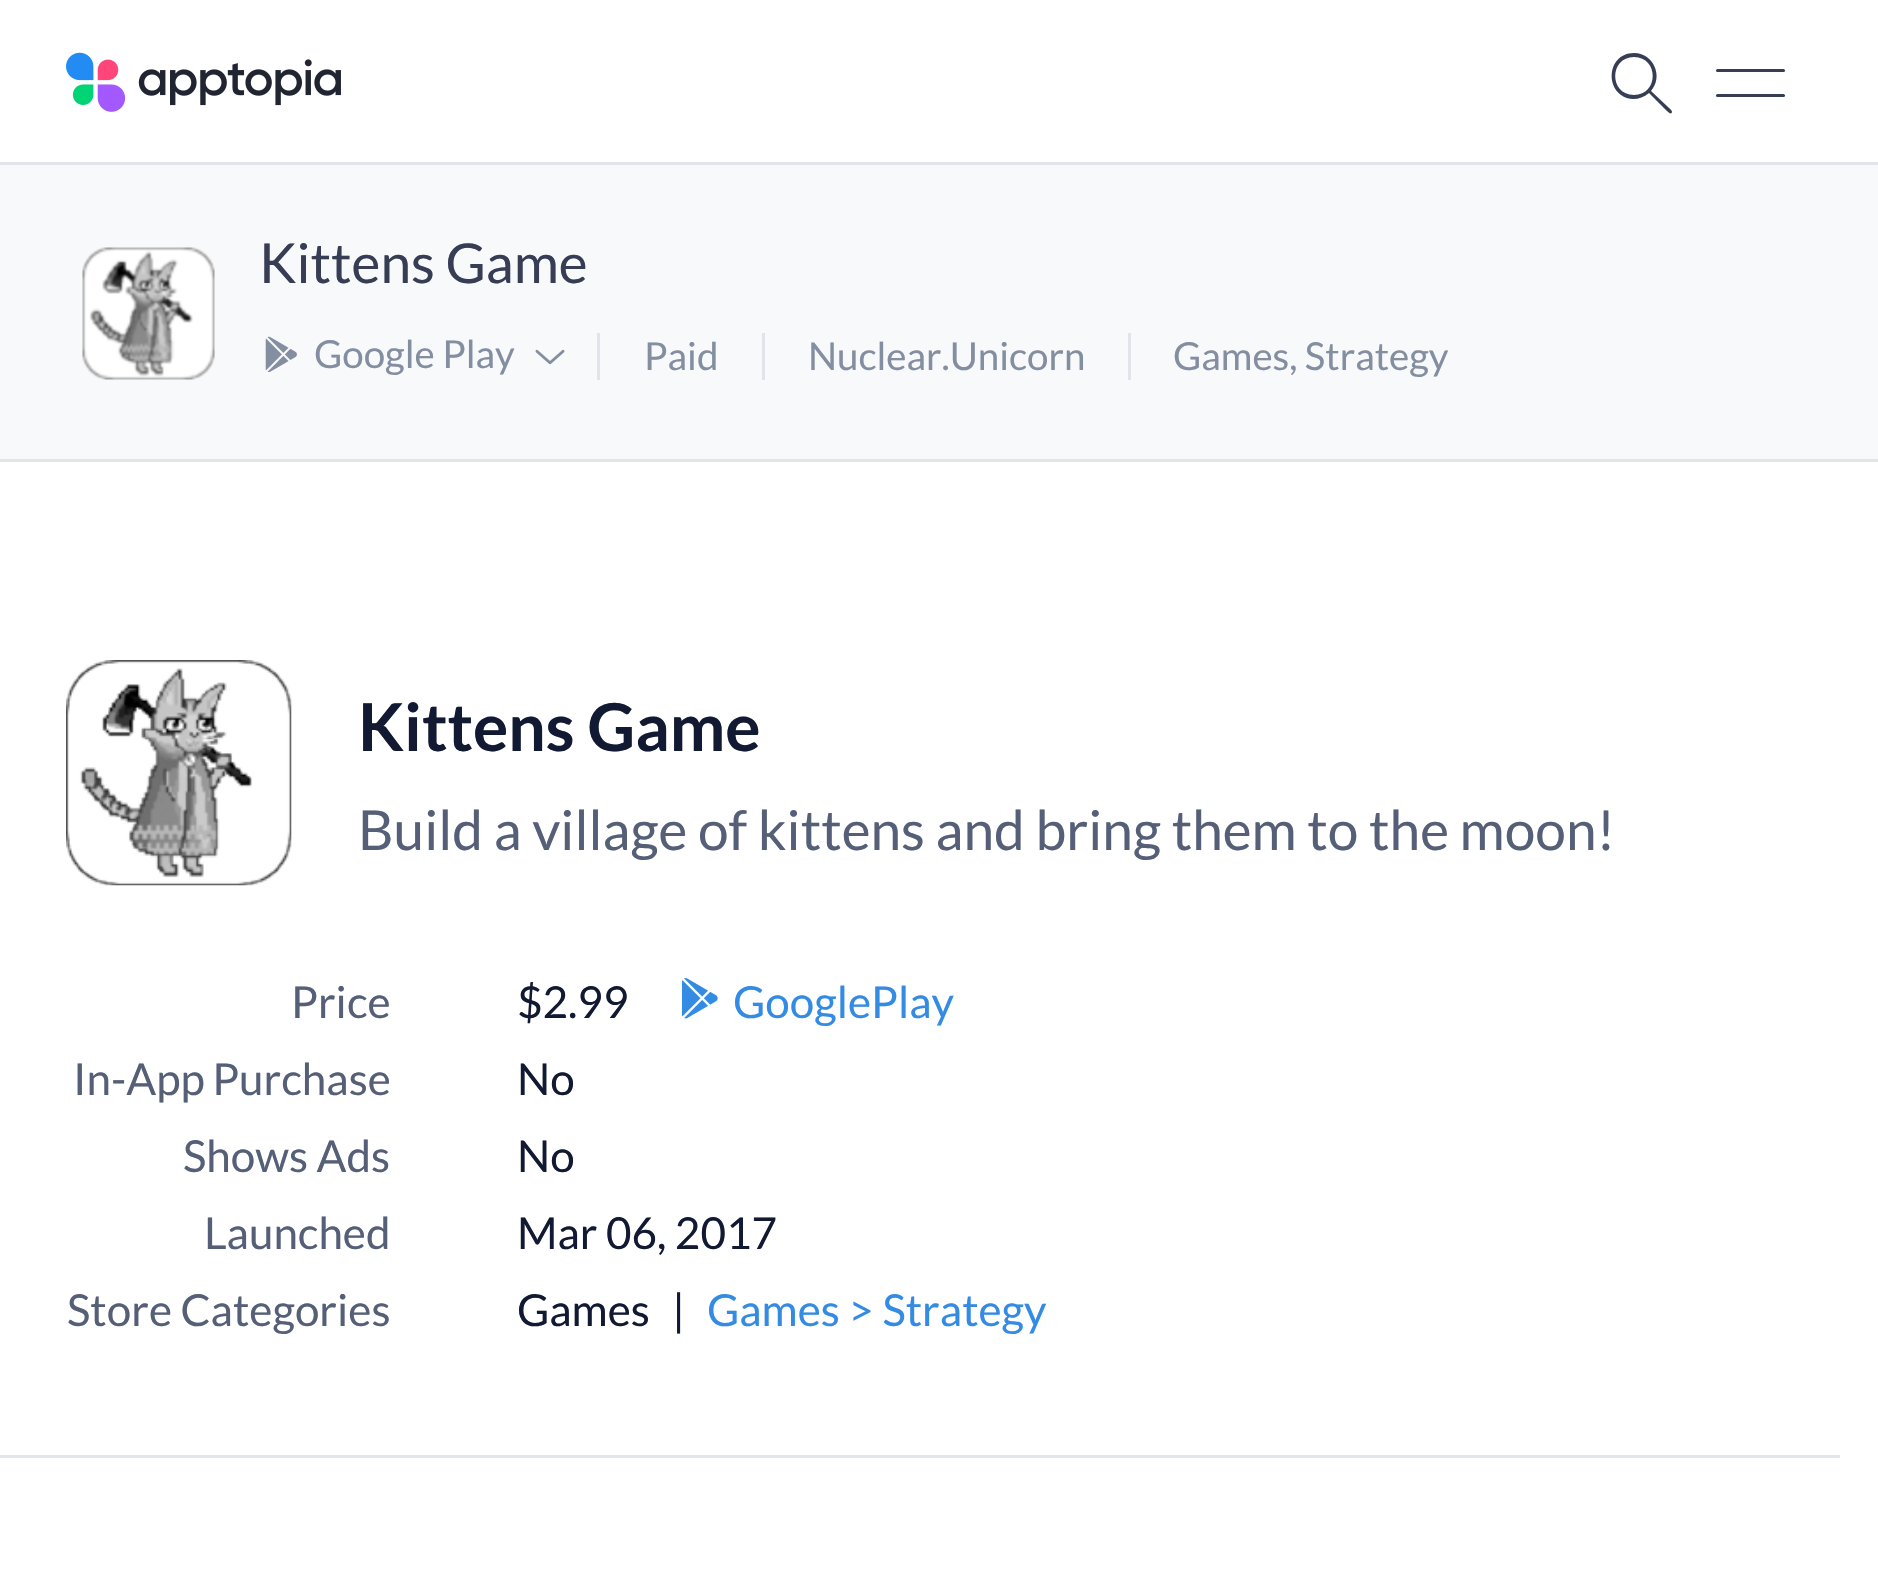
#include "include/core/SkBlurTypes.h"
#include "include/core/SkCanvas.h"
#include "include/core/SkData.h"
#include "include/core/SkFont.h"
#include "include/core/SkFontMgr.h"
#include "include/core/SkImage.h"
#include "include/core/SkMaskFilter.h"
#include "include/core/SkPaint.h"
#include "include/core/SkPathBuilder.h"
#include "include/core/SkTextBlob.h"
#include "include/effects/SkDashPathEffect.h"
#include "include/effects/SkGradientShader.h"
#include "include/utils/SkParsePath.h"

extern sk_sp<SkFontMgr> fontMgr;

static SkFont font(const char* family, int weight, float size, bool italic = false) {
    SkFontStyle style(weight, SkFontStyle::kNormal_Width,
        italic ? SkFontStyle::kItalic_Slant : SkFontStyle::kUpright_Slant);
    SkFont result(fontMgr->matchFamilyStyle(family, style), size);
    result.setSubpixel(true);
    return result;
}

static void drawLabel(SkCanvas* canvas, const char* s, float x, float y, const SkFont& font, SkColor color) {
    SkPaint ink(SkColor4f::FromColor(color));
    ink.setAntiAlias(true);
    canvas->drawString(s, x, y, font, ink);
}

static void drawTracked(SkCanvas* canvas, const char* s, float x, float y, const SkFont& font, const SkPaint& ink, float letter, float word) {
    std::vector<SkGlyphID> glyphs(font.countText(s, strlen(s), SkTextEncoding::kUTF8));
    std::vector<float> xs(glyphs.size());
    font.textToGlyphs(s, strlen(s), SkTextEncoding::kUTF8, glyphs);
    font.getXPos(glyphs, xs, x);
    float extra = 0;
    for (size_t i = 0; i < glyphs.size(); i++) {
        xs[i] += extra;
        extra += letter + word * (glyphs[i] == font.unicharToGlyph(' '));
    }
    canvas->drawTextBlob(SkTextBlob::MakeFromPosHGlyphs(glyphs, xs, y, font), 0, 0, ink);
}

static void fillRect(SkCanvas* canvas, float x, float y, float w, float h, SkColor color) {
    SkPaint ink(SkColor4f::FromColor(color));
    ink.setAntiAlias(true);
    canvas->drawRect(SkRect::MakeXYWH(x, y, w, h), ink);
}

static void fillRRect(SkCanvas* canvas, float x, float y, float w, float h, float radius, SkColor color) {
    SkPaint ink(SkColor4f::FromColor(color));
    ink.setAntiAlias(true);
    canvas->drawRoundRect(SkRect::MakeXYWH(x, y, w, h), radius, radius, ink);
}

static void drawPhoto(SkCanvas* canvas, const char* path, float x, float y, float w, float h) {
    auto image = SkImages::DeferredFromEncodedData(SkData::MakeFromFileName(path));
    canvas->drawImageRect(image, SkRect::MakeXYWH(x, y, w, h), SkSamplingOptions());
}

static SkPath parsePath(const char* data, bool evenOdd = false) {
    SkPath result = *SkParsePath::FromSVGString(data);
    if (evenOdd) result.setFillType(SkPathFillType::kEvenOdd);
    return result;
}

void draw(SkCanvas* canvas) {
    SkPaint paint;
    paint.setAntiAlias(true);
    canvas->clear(0xFFFFFFFF);
    fillRect(canvas, 0, 162, 1878, 3, 0xFFE1E5EB);
    drawPhoto(canvas, "assets/img1.png", 66, 52, 275, 60);
    paint.setColor(0xFF363D54);
    canvas->drawPath(parsePath("M1634 53C1653 53 1664 76 1651 91L1668 107C1669 108 1672 110 1672 112C1671 116 1667 111 1662 106L1649 93C1644 97 1639 99 1633 99C1604 97 1605 53 1634 53ZM1634 57C1609 57 1609 95 1634 95C1659 95 1659 57 1634 57Z"), paint);
    fillRRect(canvas, 1716, 69, 69, 3, 1.5f, 0xFF363D54);
    fillRRect(canvas, 1716, 94, 69, 3, 1.5f, 0xFF363D54);
    fillRect(canvas, 0, 165, 1878, 294, 0xFFF8F9FB);
    fillRect(canvas, 0, 459, 1878, 3, 0xFFE1E5EB);
    drawPhoto(canvas, "assets/img2.png", 82, 247, 133, 133);
    SkFont font1 = font("Lato", 400, 55);
    drawLabel(canvas, "Kittens Game", 259, 283, font1, 0xFF363D54);
    drawPhoto(canvas, "assets/img3.png", 265, 336, 32, 37);
    SkFont font2 = font("Lato", 400, 38.5f);
    drawLabel(canvas, "Google Play", 314, 368, font2, 0xFF848EA1);
    drawPhoto(canvas, "assets/img4.png", 535, 349, 30, 16);
    fillRect(canvas, 597, 333, 3, 47, 0xFFE1E5EB);
    drawLabel(canvas, "Paid", 644, 370, font2, 0xFF848EA1);
    fillRect(canvas, 762, 333, 3, 47, 0xFFE1E5EB);
    drawLabel(canvas, "Nuclear.Unicorn", 808, 370, font2, 0xFF848EA1);
    fillRect(canvas, 1128, 333, 3, 47, 0xFFE1E5EB);
    drawLabel(canvas, "Games, Strategy", 1173, 370, font2, 0xFF848EA1);
    drawPhoto(canvas, "assets/img5.png", 66, 660, 226, 226);
    SkFont font3 = font("Lato", 700, 66);
    drawLabel(canvas, "Kittens Game", 358, 751, font3, 0xFF121A33);
    drawLabel(canvas, "Build a village of kittens and bring them to the moon!", 358, 850, font1, 0xFF555F77);
    SkFont font4 = font("Lato", 400, 44);
    drawLabel(canvas, "Price", 291, 1018, font4, 0xFF555F77);
    drawLabel(canvas, "$2.99", 517, 1018, font4, 0xFF121A33);
    drawPhoto(canvas, "assets/img6.png", 682, 978, 36, 41);
    drawLabel(canvas, "GooglePlay", 733, 1018, font4, 0xFF348BE3);
    paint.setColor(0xFF555F77);
    drawTracked(canvas, "In-App Purchase", 73, 1095, font4, paint, 0, -1);
    drawLabel(canvas, "No", 517, 1095, font4, 0xFF121A33);
    drawLabel(canvas, "Shows Ads", 183, 1172, font4, 0xFF555F77);
    drawLabel(canvas, "No", 517, 1172, font4, 0xFF121A33);
    drawLabel(canvas, "Launched", 204, 1249, font4, 0xFF555F77);
    drawLabel(canvas, "Mar 06, 2017", 517, 1249, font4, 0xFF121A33);
    drawLabel(canvas, "Store Categories", 67, 1326, font4, 0xFF555F77);
    drawLabel(canvas, "Games", 517, 1326, font4, 0xFF121A33);
    drawLabel(canvas, "|", 672, 1326, font4, 0xFF121A33);
    drawLabel(canvas, "Games > Strategy", 707, 1326, font4, 0xFF348BE3);
    fillRect(canvas, 0, 1455, 1840, 3, 0xFFE1E5EB);
}
